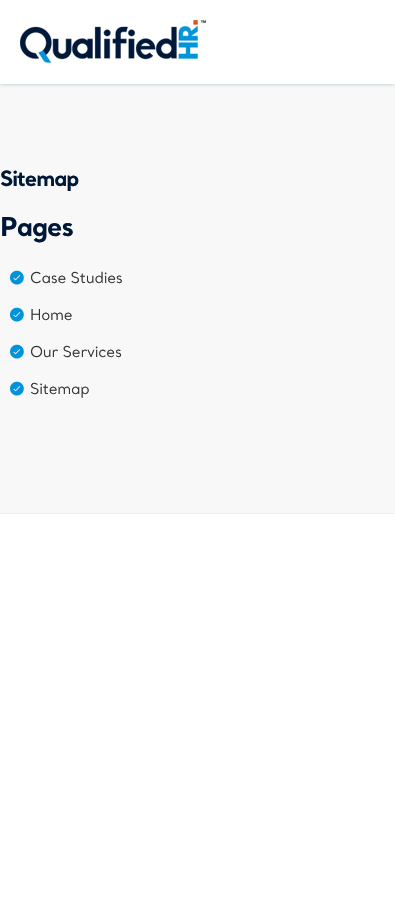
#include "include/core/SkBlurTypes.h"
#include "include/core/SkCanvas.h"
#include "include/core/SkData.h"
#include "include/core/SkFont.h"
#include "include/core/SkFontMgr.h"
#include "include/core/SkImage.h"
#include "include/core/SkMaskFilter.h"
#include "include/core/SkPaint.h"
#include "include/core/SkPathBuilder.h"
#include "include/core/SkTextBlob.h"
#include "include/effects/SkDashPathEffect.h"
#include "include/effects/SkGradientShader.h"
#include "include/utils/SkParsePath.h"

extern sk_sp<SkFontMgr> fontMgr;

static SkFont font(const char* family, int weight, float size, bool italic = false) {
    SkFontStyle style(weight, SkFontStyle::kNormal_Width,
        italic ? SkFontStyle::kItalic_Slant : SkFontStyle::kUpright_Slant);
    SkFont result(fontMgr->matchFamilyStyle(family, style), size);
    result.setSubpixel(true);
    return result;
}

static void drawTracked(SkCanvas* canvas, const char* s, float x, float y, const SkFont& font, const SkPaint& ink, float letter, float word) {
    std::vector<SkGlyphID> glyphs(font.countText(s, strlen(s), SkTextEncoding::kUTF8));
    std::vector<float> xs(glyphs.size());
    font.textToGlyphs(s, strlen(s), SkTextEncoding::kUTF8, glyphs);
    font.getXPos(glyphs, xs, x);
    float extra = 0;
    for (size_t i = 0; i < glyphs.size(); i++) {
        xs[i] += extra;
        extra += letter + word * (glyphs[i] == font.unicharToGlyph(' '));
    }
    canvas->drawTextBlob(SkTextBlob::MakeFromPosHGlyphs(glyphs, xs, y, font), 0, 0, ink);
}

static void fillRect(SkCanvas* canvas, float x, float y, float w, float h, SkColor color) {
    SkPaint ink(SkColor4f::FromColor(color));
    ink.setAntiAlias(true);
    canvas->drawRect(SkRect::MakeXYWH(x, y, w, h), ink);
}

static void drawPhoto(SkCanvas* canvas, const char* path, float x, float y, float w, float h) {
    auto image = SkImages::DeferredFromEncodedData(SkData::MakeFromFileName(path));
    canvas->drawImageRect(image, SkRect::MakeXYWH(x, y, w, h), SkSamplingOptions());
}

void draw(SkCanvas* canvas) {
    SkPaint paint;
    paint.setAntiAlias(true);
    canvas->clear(0xFFFFFFFF);
    fillRect(canvas, 0, 84, 395, 429, 0xFFF8F8F8);
    canvas->save();
    canvas->clipRect(SkRect::MakeXYWH(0, 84, 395, 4));
    paint.setColor(0xFFAEC6CA);
    paint.setMaskFilter(SkMaskFilter::MakeBlur(kNormal_SkBlurStyle, 2));
    canvas->drawRect(SkRect::MakeXYWH(0, 60, 395, 24), paint);
    paint.setMaskFilter(nullptr);
    canvas->restore();
    fillRect(canvas, 0, 56, 395, 4, 0xFFFFFFFF);
    drawPhoto(canvas, "assets/img1.png", 20, 20, 186, 43);
    SkFont font1 = font("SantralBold", 700, 21);
    paint.setColor(0xFF001838);
    drawTracked(canvas, "Sitemap", 0, 186, font1, paint, -1, 0);
    SkFont font2 = font("SantralBold", 700, 26);
    drawTracked(canvas, "Pages", 0, 236, font2, paint, -1, 0);
    drawPhoto(canvas, "assets/img2.png", 10, 270, 14, 15);
    SkFont font3 = font("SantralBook", 400, 15);
    paint.setColor(0xFF333333);
    drawTracked(canvas, "Case Studies", 30, 283, font3, paint, -0.25f, 0);
    drawPhoto(canvas, "assets/img2.png", 10, 307, 14, 15);
    drawTracked(canvas, "Home", 30, 320, font3, paint, -0.25f, 0);
    drawPhoto(canvas, "assets/img2.png", 10, 344, 14, 15);
    drawTracked(canvas, "Our Services", 30, 357, font3, paint, -0.25f, 0);
    drawPhoto(canvas, "assets/img2.png", 10, 381, 14, 15);
    drawTracked(canvas, "Sitemap", 30, 394, font3, paint, -0.25f, 0);
    fillRect(canvas, 0, 513, 395, 1, 0xFFEEEEEE);
}
